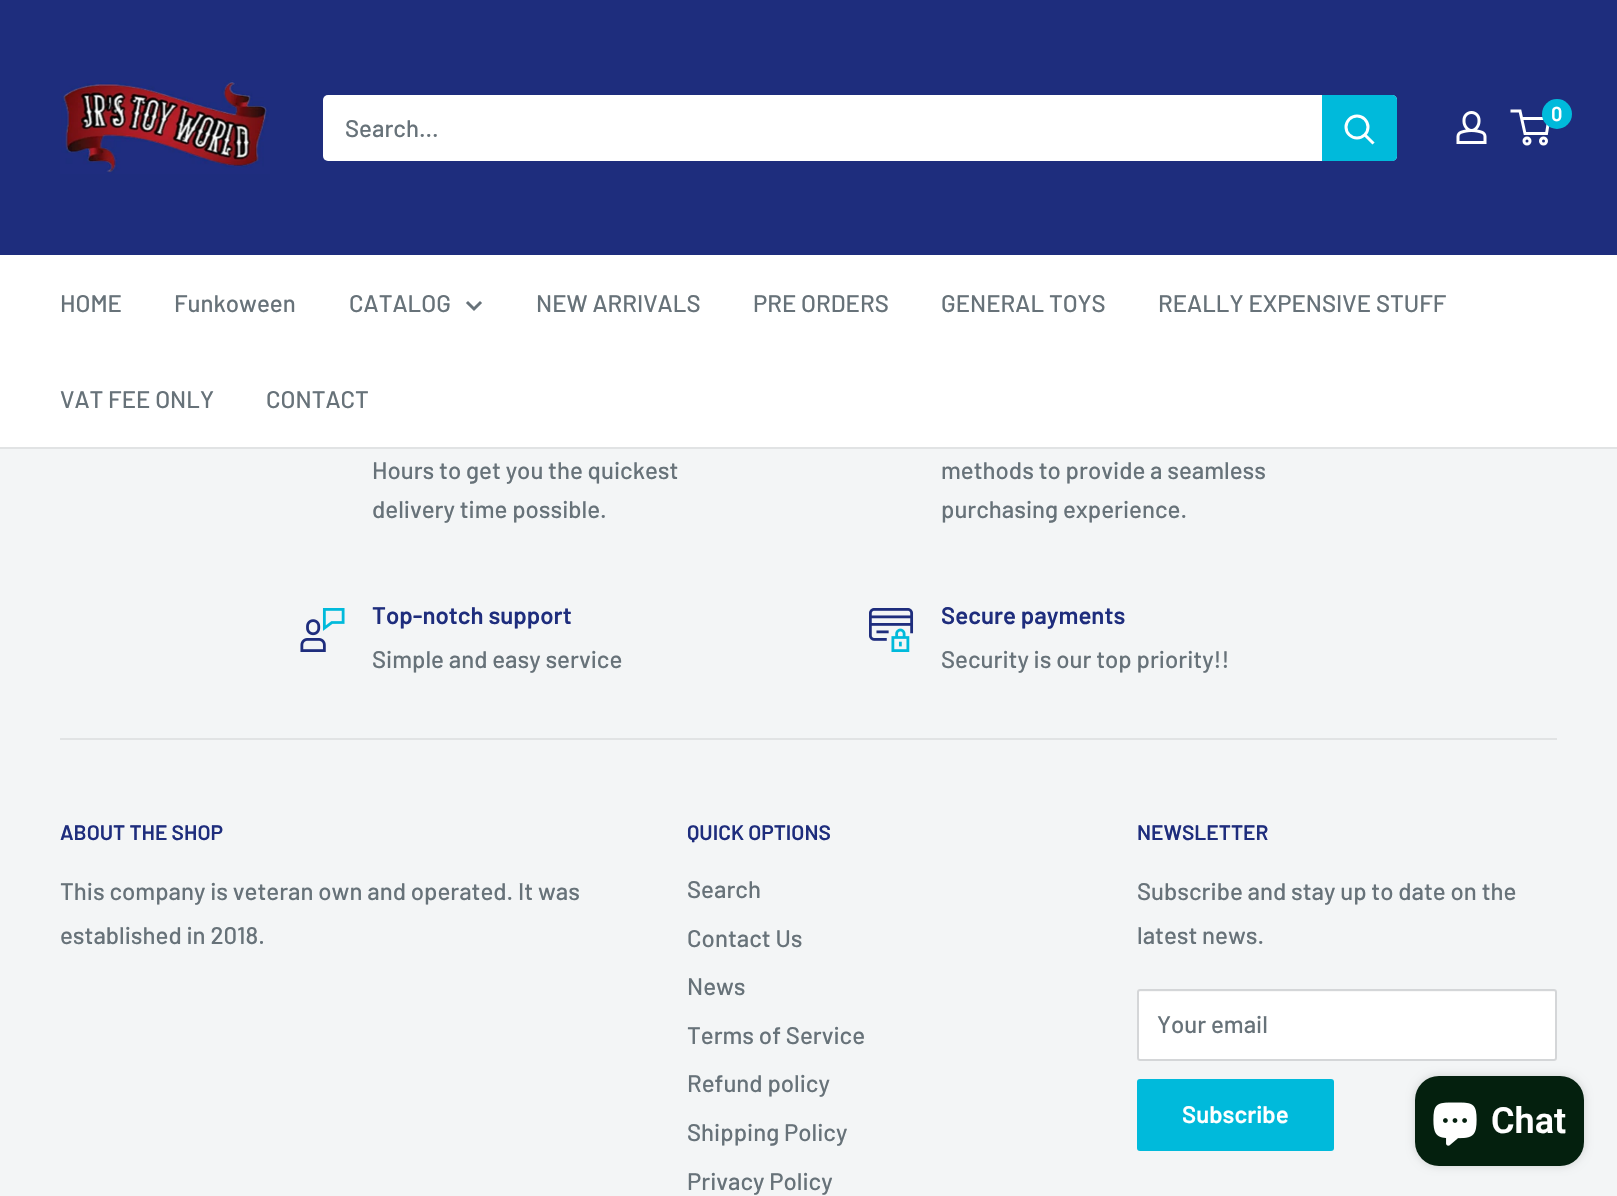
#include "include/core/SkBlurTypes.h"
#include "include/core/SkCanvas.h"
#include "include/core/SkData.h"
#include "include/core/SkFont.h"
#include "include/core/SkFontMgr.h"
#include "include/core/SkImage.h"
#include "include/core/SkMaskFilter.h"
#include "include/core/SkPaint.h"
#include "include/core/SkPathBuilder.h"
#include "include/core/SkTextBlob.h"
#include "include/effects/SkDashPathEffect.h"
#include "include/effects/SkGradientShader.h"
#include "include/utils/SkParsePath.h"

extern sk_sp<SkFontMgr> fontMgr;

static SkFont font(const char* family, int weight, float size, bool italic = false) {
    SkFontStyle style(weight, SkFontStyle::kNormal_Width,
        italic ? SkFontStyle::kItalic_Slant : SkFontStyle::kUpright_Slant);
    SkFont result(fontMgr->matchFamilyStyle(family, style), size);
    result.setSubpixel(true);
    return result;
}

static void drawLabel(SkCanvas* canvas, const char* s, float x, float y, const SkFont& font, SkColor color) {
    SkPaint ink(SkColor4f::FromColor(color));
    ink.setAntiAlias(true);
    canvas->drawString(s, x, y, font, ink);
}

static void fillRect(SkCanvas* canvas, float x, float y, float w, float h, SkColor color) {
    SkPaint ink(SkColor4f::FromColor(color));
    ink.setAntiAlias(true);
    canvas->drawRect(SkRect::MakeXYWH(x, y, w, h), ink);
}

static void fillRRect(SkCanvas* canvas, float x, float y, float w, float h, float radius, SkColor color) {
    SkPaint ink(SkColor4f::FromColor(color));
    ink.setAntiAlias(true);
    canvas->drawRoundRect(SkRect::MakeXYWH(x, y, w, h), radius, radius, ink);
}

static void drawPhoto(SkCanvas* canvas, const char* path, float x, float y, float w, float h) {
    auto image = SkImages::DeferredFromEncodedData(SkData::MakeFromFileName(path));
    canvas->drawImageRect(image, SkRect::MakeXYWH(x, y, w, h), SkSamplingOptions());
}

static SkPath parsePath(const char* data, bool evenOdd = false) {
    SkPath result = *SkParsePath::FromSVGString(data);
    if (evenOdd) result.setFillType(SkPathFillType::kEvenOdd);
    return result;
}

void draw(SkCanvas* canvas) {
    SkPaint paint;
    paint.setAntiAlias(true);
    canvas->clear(0xFFF3F5F6);
    fillRect(canvas, 0, 0, 1617, 255, 0xFF1E2D7D);
    drawPhoto(canvas, "assets/img1.png", 60, 80, 210, 94);
    drawPhoto(canvas, "assets/img2.png", 1456, 111, 31, 33);
    paint.setStroke(true);
    paint.setStrokeWidth(3);
    paint.setColor(0xFFFFFFFF);
    canvas->drawCircle(1527, 141, 3, paint);
    canvas->drawCircle(1543.5f, 141, 3, paint);
    canvas->drawPath(parsePath("M1521.5 118.5H1549L1546.5 133.5H1525L1520 111H1510.5"), paint);
    paint.setStroke(false);
    paint.setColor(0xFF00BADB);
    canvas->drawCircle(1557, 114, 15, paint);
    SkFont font1 = font("Barlow", 600, 20);
    drawLabel(canvas, "0", 1551, 121, font1, 0xFFFFFFFF);
    fillRRect(canvas, 323, 95, 1074, 66, 5, 0xFFFFFFFF);
    SkFont font2 = font("Barlow", 500, 24);
    drawLabel(canvas, "Search...", 345, 137, font2, 0xFF677279);
    canvas->drawPath(parsePath("M1322 95H1392C1395 95 1397 97 1397 100V156C1397 159 1395 161 1392 161H1322Z"), paint);
    paint.setStroke(true);
    paint.setStrokeCap(SkPaint::kSquare_Cap);
    paint.setColor(0xFFFFFFFF);
    canvas->drawPath(parsePath("M1372.5 142.5L1365 135"), paint);
    paint.setStrokeCap(SkPaint::kButt_Cap);
    canvas->drawCircle(1357, 127, 11, paint);
    fillRect(canvas, 0, 255, 1617, 192, 0xFFFFFFFF);
    fillRect(canvas, 0, 447, 1617, 2, 0xFFE1E3E4);
    drawLabel(canvas, "HOME", 60, 312, font2, 0xFF677279);
    drawLabel(canvas, "Funkoween", 174, 312, font2, 0xFF677279);
    drawLabel(canvas, "CATALOG", 349, 312, font2, 0xFF677279);
    paint.setStrokeCap(SkPaint::kSquare_Cap);
    paint.setColor(0xFF677279);
    canvas->drawPath(parsePath("M480 303L474 309L468 303"), paint);
    drawLabel(canvas, "NEW ARRIVALS", 536, 312, font2, 0xFF677279);
    drawLabel(canvas, "PRE ORDERS", 753, 312, font2, 0xFF677279);
    drawLabel(canvas, "GENERAL TOYS", 941, 312, font2, 0xFF677279);
    drawLabel(canvas, "REALLY EXPENSIVE STUFF", 1158, 312, font2, 0xFF677279);
    drawLabel(canvas, "VAT FEE ONLY", 60, 408, font2, 0xFF677279);
    drawLabel(canvas, "CONTACT", 266, 408, font2, 0xFF677279);
    drawLabel(canvas, "Hours to get you the quickest", 372, 479, font2, 0xFF677279);
    drawLabel(canvas, "delivery time possible.", 372, 518, font2, 0xFF677279);
    drawLabel(canvas, "methods to provide a seamless", 941, 479, font2, 0xFF677279);
    drawLabel(canvas, "purchasing experience.", 941, 518, font2, 0xFF677279);
    drawPhoto(canvas, "assets/img3.png", 300, 608, 45, 44);
    SkFont font3 = font("Barlow", 600, 24);
    drawLabel(canvas, "Top-notch support", 372, 624, font3, 0xFF1E2D7D);
    drawLabel(canvas, "Simple and easy service", 372, 668, font2, 0xFF677279);
    drawPhoto(canvas, "assets/img4.png", 869, 608, 45, 44);
    drawLabel(canvas, "Secure payments", 941, 624, font3, 0xFF1E2D7D);
    drawLabel(canvas, "Security is our top priority!!", 941, 668, font2, 0xFF677279);
    fillRect(canvas, 60, 738, 1497, 2, 0xFFE1E3E4);
    SkFont font4 = font("Barlow", 600, 21);
    drawLabel(canvas, "ABOUT THE SHOP", 60, 840, font4, 0xFF1E2D7D);
    drawLabel(canvas, "This company is veteran own and operated. It was", 60, 900, font2, 0xFF677279);
    drawLabel(canvas, "established in 2018.", 60, 944, font2, 0xFF677279);
    drawLabel(canvas, "QUICK OPTIONS", 687, 840, font4, 0xFF1E2D7D);
    drawLabel(canvas, "Search", 687, 898, font2, 0xFF677279);
    drawLabel(canvas, "Contact Us", 687, 947, font2, 0xFF677279);
    drawLabel(canvas, "News", 687, 995, font2, 0xFF677279);
    drawLabel(canvas, "Terms of Service", 687, 1044, font2, 0xFF677279);
    drawLabel(canvas, "Refund policy", 687, 1092, font2, 0xFF677279);
    drawLabel(canvas, "Shipping Policy", 687, 1141, font2, 0xFF677279);
    drawLabel(canvas, "Privacy Policy", 687, 1190, font2, 0xFF677279);
    drawLabel(canvas, "NEWSLETTER", 1137, 840, font4, 0xFF1E2D7D);
    drawLabel(canvas, "Subscribe and stay up to date on the", 1137, 900, font2, 0xFF677279);
    drawLabel(canvas, "latest news.", 1137, 944, font2, 0xFF677279);
    fillRRect(canvas, 1137, 989, 420, 72, 3, 0xFFFFFFFF);
    paint.setStroke(false);
    paint.setColor(0xFFF8F8F8);
    canvas->drawPath(parsePath("M1140 992H1554C1555 992 1556 992 1556 993C1556 992 1556 990 1554 990H1140L1139 991V992Z"), paint);
    paint.setStroke(true);
    paint.setStrokeWidth(2);
    paint.setStrokeCap(SkPaint::kButt_Cap);
    paint.setColor(0xFFD4D6D8);
    canvas->drawRoundRect(SkRect::MakeXYWH(1138, 990, 418, 70), 2, 2, paint);
    drawLabel(canvas, "Your email", 1157, 1033, font2, 0xFF677279);
    fillRRect(canvas, 1137, 1079, 197, 72, 3, 0xFF00BADB);
    drawLabel(canvas, "Subscribe", 1182, 1123, font3, 0xFFFFFFFF);
    paint.setStroke(false);
    paint.setColor(0x26000000);
    paint.setMaskFilter(SkMaskFilter::MakeBlur(kNormal_SkBlurStyle, 4));
    canvas->drawRoundRect(SkRect::MakeXYWH(1415, 1076, 169, 90), 24, 24, paint);
    paint.setMaskFilter(nullptr);
    fillRRect(canvas, 1415, 1076, 169, 90, 24, 0xFF04200E);
    drawPhoto(canvas, "assets/img5.png", 1433, 1102, 44, 44);
    SkFont font5 = font("Roboto", 600, 36);
    drawLabel(canvas, "Chat", 1491, 1133, font5, 0xFFFFFFFF);
}
